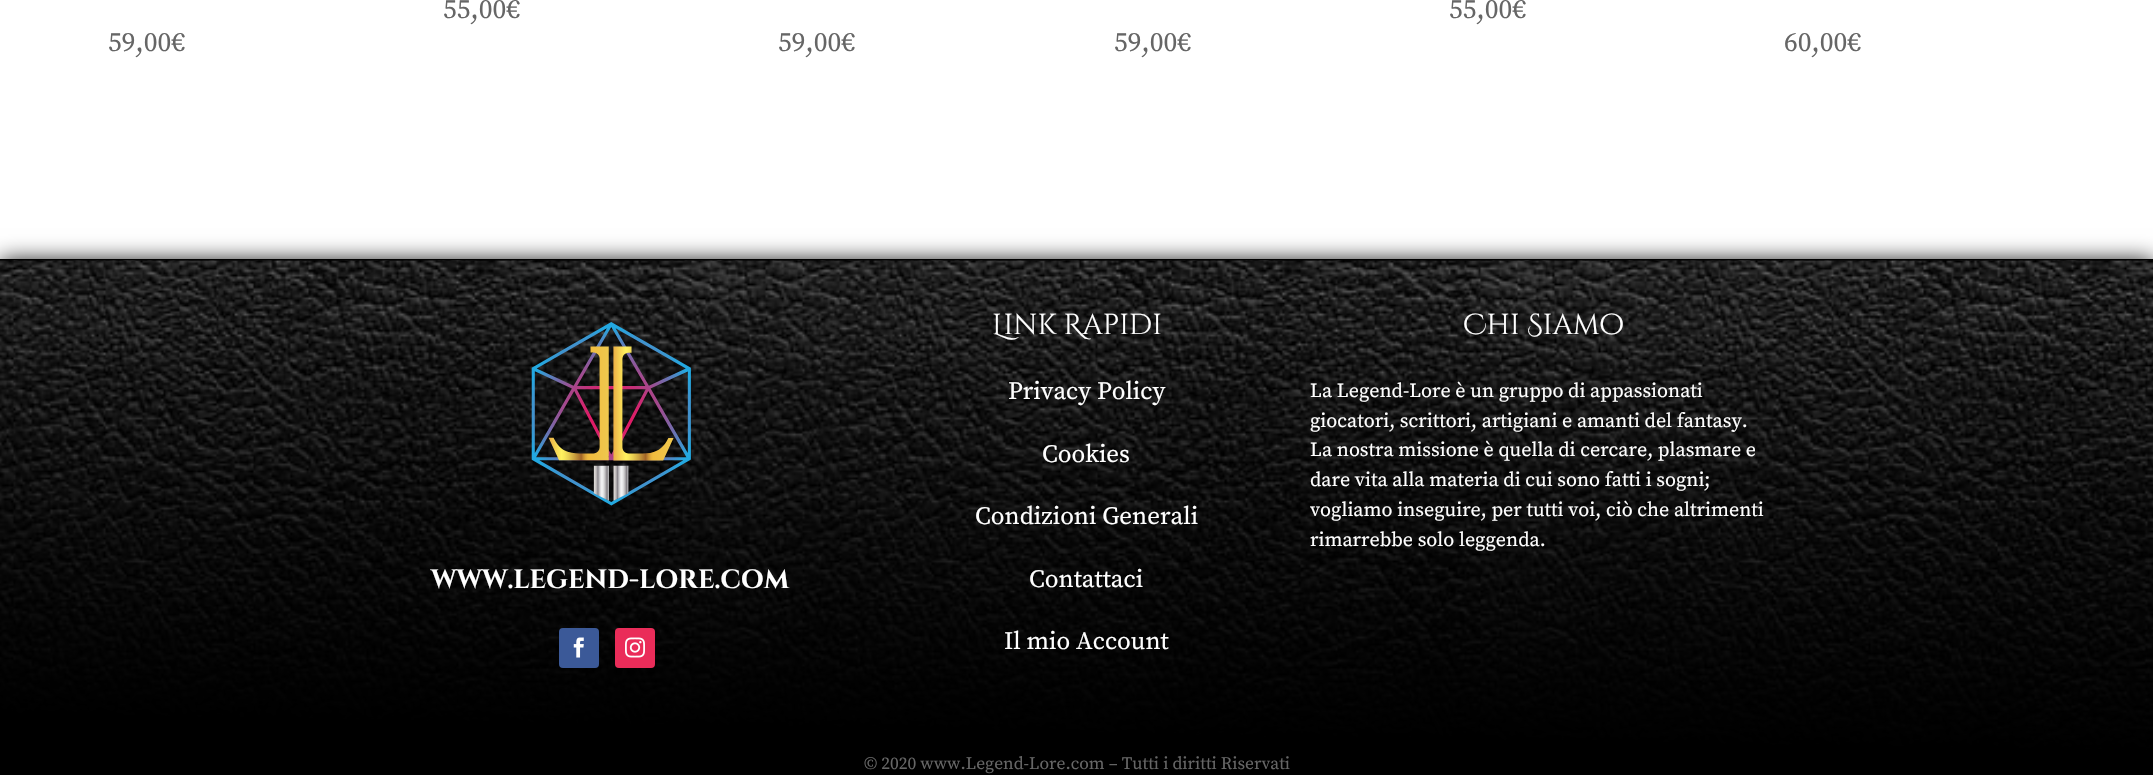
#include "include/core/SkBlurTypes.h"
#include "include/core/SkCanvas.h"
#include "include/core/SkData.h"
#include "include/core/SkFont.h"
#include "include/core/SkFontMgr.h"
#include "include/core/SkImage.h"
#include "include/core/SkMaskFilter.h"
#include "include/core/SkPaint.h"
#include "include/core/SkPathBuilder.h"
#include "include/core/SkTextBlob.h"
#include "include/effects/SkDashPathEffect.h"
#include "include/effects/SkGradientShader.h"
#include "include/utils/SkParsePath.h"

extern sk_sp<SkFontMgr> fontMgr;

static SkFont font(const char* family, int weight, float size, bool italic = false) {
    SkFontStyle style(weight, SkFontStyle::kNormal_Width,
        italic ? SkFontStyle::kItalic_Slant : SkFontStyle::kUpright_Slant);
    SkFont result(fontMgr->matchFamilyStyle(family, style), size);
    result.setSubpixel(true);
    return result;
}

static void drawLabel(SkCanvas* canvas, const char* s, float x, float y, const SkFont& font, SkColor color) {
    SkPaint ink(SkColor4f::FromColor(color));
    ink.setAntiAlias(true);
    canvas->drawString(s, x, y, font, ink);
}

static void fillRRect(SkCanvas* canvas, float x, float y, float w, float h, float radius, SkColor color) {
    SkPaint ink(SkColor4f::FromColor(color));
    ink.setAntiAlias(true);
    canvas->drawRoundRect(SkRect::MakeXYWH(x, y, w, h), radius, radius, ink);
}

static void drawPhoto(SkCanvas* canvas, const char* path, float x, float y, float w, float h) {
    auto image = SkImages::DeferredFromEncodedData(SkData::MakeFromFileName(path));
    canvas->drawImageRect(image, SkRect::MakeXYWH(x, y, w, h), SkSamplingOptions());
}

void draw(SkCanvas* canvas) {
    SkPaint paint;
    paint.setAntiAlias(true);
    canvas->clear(0xFFFFFFFF);
    SkFont font1 = font("Source Serif Pro", 400, 27.5f);
    drawLabel(canvas, "55,00€", 443, 18, font1, 0xFF666666);
    drawLabel(canvas, "55,00€", 1449, 18, font1, 0xFF666666);
    drawLabel(canvas, "59,00€", 108, 51, font1, 0xFF666666);
    drawLabel(canvas, "59,00€", 778, 51, font1, 0xFF666666);
    drawLabel(canvas, "59,00€", 1114, 51, font1, 0xFF666666);
    drawLabel(canvas, "60,00€", 1784, 51, font1, 0xFF666666);
    paint.setColor(0xFF000000);
    paint.setMaskFilter(SkMaskFilter::MakeBlur(kNormal_SkBlurStyle, 11));
    canvas->drawRect(SkRect::MakeXYWH(0, 261, 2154, 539), paint);
    paint.setMaskFilter(nullptr);
    drawPhoto(canvas, "assets/img1.png", 0, 259, 2153, 516);
    SkFont font2 = font("Cinzel Decorative", 400, 28.75f);
    drawLabel(canvas, "Link Rapidi", 992, 334, font2, 0xFFFFFFFF);
    SkFont font3 = font("Source Serif Pro", 400, 25);
    drawLabel(canvas, "Privacy Policy", 1008, 399, font3, 0xFFFFFFFF);
    drawLabel(canvas, "Cookies", 1042, 462, font3, 0xFFFFFFFF);
    drawLabel(canvas, "Condizioni Generali", 975, 524, font3, 0xFFFFFFFF);
    drawLabel(canvas, "Contattaci", 1029, 587, font3, 0xFFFFFFFF);
    drawLabel(canvas, "Il mio Account", 1004, 649, font3, 0xFFFFFFFF);
    drawLabel(canvas, "Chi Siamo", 1463, 334, font2, 0xFFFFFFFF);
    SkFont font4 = font("Source Serif Pro", 400, 20);
    drawLabel(canvas, "La Legend-Lore è un gruppo di appassionati", 1310, 397, font4, 0xFFFFFFFF);
    drawLabel(canvas, "giocatori, scrittori, artigiani e amanti del fantasy.", 1310, 427, font4, 0xFFFFFFFF);
    drawLabel(canvas, "La nostra missione è quella di cercare, plasmare e", 1310, 456, font4, 0xFFFFFFFF);
    drawLabel(canvas, "dare vita alla materia di cui sono fatti i sogni;", 1310, 486, font4, 0xFFFFFFFF);
    drawLabel(canvas, "vogliamo inseguire, per tutti voi, ciò che altrimenti", 1310, 516, font4, 0xFFFFFFFF);
    drawLabel(canvas, "rimarrebbe solo leggenda.", 1310, 546, font4, 0xFFFFFFFF);
    drawPhoto(canvas, "assets/img2.png", 531, 322, 160, 184);
    SkFont font5 = font("Cinzel", 700, 26.25f);
    drawLabel(canvas, "WWW.LEGEND-LORE.COM", 431, 588, font5, 0xFFFFFFFF);
    fillRRect(canvas, 559, 628, 40, 40, 4, 0xFF3B5998);
    drawPhoto(canvas, "assets/img3.png", 573, 637, 11, 21);
    fillRRect(canvas, 615, 628, 40, 40, 4, 0xFFEA2C59);
    drawPhoto(canvas, "assets/img4.png", 625, 637, 20, 21);
    SkFont font6 = font("Source Serif Pro", 400, 17.5f);
    drawLabel(canvas, "© 2020 www.Legend-Lore.com – Tutti i diritti Riservati", 864, 769, font6, 0xFF666666);
}
